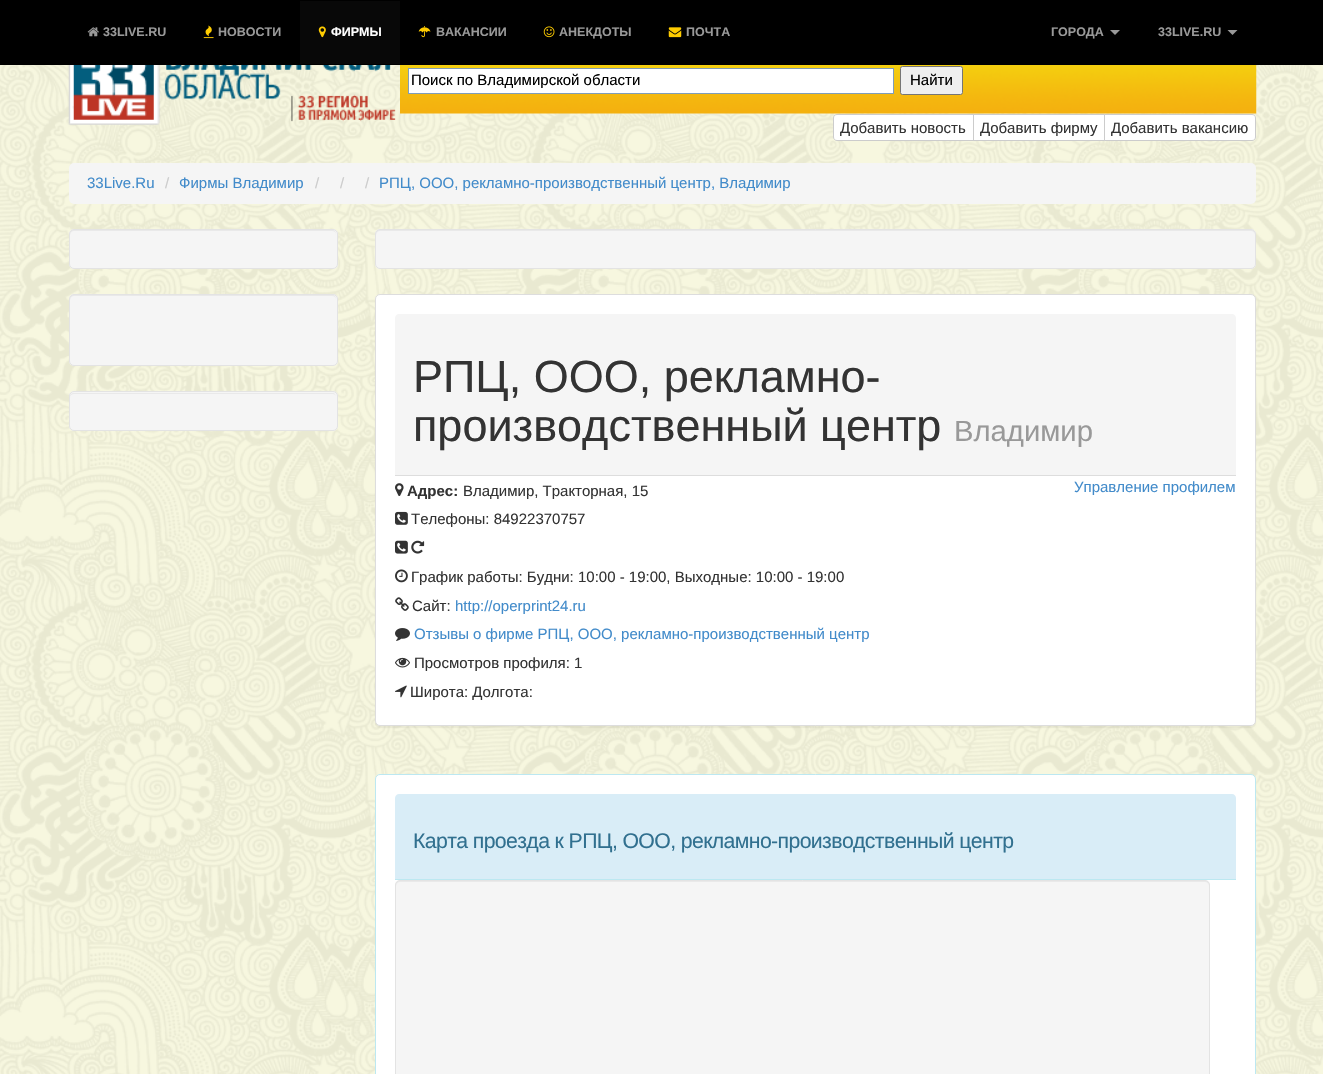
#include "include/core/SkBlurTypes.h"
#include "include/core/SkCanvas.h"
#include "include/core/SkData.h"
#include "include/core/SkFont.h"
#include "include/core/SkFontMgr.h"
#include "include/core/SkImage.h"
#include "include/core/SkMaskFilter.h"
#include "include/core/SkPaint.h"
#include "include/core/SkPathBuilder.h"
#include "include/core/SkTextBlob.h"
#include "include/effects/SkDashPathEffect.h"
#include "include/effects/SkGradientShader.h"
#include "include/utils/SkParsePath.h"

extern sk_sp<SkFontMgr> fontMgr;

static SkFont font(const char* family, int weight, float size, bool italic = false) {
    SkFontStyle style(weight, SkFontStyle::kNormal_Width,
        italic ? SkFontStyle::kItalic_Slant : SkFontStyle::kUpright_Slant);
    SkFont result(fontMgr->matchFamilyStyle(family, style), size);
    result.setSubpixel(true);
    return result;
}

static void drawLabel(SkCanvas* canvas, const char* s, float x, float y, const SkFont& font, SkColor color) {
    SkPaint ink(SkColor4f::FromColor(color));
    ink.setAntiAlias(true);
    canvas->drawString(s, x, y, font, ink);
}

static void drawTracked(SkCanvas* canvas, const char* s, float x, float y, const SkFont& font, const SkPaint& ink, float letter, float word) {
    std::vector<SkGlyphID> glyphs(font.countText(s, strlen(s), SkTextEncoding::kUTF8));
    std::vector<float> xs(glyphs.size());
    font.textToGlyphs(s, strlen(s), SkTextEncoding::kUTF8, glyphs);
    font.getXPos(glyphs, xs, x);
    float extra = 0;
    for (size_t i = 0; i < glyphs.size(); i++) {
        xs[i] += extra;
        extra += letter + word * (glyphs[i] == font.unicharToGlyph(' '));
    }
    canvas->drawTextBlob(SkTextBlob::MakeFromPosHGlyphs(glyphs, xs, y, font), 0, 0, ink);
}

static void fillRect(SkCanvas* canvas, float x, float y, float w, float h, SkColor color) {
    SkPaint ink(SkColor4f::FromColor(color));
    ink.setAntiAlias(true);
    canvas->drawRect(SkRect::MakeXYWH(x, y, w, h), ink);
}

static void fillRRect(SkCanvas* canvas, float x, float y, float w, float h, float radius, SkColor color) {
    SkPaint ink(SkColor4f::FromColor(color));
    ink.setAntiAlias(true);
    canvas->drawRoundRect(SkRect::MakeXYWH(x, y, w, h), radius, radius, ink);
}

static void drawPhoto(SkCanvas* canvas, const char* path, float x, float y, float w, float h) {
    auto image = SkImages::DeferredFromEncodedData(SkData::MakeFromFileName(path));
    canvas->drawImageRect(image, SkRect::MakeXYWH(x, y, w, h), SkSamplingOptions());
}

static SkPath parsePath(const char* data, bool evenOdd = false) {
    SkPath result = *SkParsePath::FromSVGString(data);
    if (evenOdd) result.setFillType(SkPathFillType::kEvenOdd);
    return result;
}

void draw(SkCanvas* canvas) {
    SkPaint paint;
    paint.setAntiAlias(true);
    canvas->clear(0xFFFFFFFF);
    drawPhoto(canvas, "assets/img1.png", 0, 65, 1323, 1009);
    fillRect(canvas, 0, 0, 1323, 65, 0xFF000000);
    drawPhoto(canvas, "assets/img2.png", 87, 27, 12, 10);
    SkFont font1 = font("Liberation Sans", 700, 12.5f);
    drawLabel(canvas, "33LIVE.RU", 103, 36, font1, 0xFF999999);
    drawPhoto(canvas, "assets/img3.png", 203, 25, 11, 14);
    drawLabel(canvas, "НОВОСТИ", 218, 36, font1, 0xFF999999);
    fillRect(canvas, 300, 1, 100, 63, 0xFF080808);
    drawPhoto(canvas, "assets/img4.png", 318, 26, 8, 12);
    drawLabel(canvas, "ФИРМЫ", 331, 36, font1, 0xFFFFFFFF);
    drawPhoto(canvas, "assets/img5.png", 418, 26, 13, 12);
    drawLabel(canvas, "ВАКАНСИИ", 436, 36, font1, 0xFF999999);
    drawPhoto(canvas, "assets/img6.png", 543, 26, 12, 12);
    drawLabel(canvas, "АНЕКДОТЫ", 559, 36, font1, 0xFF999999);
    drawPhoto(canvas, "assets/img7.png", 668, 27, 14, 11);
    drawLabel(canvas, "ПОЧТА", 686, 36, font1, 0xFF999999);
    drawLabel(canvas, "ГОРОДА", 1051, 36, font1, 0xFF999999);
    paint.setColor(0xFF999999);
    canvas->drawPath(parsePath("M1110 30H1120L1115 35Z"), paint);
    drawLabel(canvas, "33LIVE.RU", 1158, 36, font1, 0xFF999999);
    canvas->drawPath(parsePath("M1227.5 30H1237.5L1232.5 35Z"), paint);
    drawPhoto(canvas, "assets/img8.png", 68, 65, 328, 60);
    drawPhoto(canvas, "assets/img9.png", 400, 65, 857, 49);
    paint.setColor(0xFFFFFFFF);
    canvas->drawRect(SkRect::MakeXYWH(408.5f, 68.5f, 485, 25), paint);
    paint.setStroke(true);
    paint.setStrokeWidth(1);
    paint.setColor(0xFF7F9DB9);
    canvas->drawRect(SkRect::MakeXYWH(408.5f, 68.5f, 485, 25), paint);
    SkFont font2 = font("Liberation Sans", 400, 15);
    drawLabel(canvas, "Поиск по Владимирской области", 411, 85, font2, 0xFF000000);
    paint.setStroke(false);
    paint.setColor(0xFFEFEFEF);
    canvas->drawRoundRect(SkRect::MakeXYWH(900.5f, 66.5f, 62, 28), 2, 2, paint);
    paint.setStroke(true);
    paint.setColor(0xFF767676);
    canvas->drawRoundRect(SkRect::MakeXYWH(900.5f, 66.5f, 62, 28), 2, 2, paint);
    drawLabel(canvas, "Найти", 910, 85, font2, 0xFF000000);
    paint.setStroke(false);
    paint.setColor(0xFFFFFFFF);
    canvas->drawPath(parsePath("M837 114.5H973.5V140.5H837C835 140.5 833.5 139 833.5 137V118C833.5 116 835 114.5 837 114.5Z"), paint);
    paint.setStroke(true);
    paint.setColor(0xFFCCCCCC);
    canvas->drawPath(parsePath("M837 114.5H973.5V140.5H837C835 140.5 833.5 139 833.5 137V118C833.5 116 835 114.5 837 114.5Z"), paint);
    drawLabel(canvas, "Добавить новость", 840, 133, font2, 0xFF333333);
    paint.setStroke(false);
    paint.setColor(0xFFFFFFFF);
    canvas->drawRect(SkRect::MakeXYWH(973.5f, 114.5f, 131, 26), paint);
    paint.setStroke(true);
    paint.setColor(0xFFCCCCCC);
    canvas->drawRect(SkRect::MakeXYWH(973.5f, 114.5f, 131, 26), paint);
    drawLabel(canvas, "Добавить фирму", 980, 133, font2, 0xFF333333);
    paint.setStroke(false);
    paint.setColor(0xFFFFFFFF);
    canvas->drawPath(parsePath("M1104.5 114.5H1252C1254 114.5 1255.5 116 1255.5 118V137C1255.5 139 1254 140.5 1252 140.5H1104.5Z"), paint);
    paint.setStroke(true);
    paint.setColor(0xFFCCCCCC);
    canvas->drawPath(parsePath("M1104.5 114.5H1252C1254 114.5 1255.5 116 1255.5 118V137C1255.5 139 1254 140.5 1252 140.5H1104.5Z"), paint);
    drawLabel(canvas, "Добавить вакансию", 1111, 133, font2, 0xFF333333);
    fillRRect(canvas, 69, 163, 1187, 41, 5, 0xFFF5F5F5);
    drawLabel(canvas, "33Live.Ru", 87, 188, font2, 0xFF428BCA);
    drawLabel(canvas, "/", 165, 188, font2, 0xFFCCCCCC);
    drawLabel(canvas, "Фирмы Владимир", 179, 188, font2, 0xFF428BCA);
    drawLabel(canvas, "/", 315, 188, font2, 0xFFCCCCCC);
    drawLabel(canvas, "/", 340, 188, font2, 0xFFCCCCCC);
    drawLabel(canvas, "/", 365, 188, font2, 0xFFCCCCCC);
    drawLabel(canvas, "РПЦ, ООО, рекламно-производственный центр, Владимир", 379, 188, font2, 0xFF428BCA);
    fillRRect(canvas, 69, 229, 269, 40, 5, 0xFFF5F5F5);
    paint.setStroke(false);
    paint.setColor(0xFFE9E9E9);
    canvas->drawPath(parsePath("M74 231H332C335 231 336 233 336 235C336 232 335 230 332 230H74C71 230 70 232 70 235C70 233 72 231 74 231Z"), paint);
    paint.setStroke(true);
    paint.setColor(0xFFE3E3E3);
    canvas->drawRoundRect(SkRect::MakeXYWH(69.5f, 229.5f, 268, 39), 4.5f, 4.5f, paint);
    fillRRect(canvas, 69, 294, 269, 72, 5, 0xFFF5F5F5);
    paint.setStroke(false);
    paint.setColor(0xFFE9E9E9);
    canvas->drawPath(parsePath("M74 296H332C335 296 336 298 336 300C336 297 335 295 332 295H74C71 295 70 297 70 300C70 298 72 296 74 296Z"), paint);
    paint.setStroke(true);
    paint.setColor(0xFFE3E3E3);
    canvas->drawRoundRect(SkRect::MakeXYWH(69.5f, 294.5f, 268, 71), 4.5f, 4.5f, paint);
    fillRRect(canvas, 69, 391, 269, 40, 5, 0xFFF5F5F5);
    paint.setStroke(false);
    paint.setColor(0xFFE9E9E9);
    canvas->drawPath(parsePath("M74 394H332C335 394 336 395 336 398C336 395 335 393 332 393H74C71 393 70 395 70 398C70 395 72 394 74 394Z"), paint);
    paint.setStroke(true);
    paint.setColor(0xFFE3E3E3);
    canvas->drawRoundRect(SkRect::MakeXYWH(69.5f, 391.5f, 268, 39), 4.5f, 4.5f, paint);
    fillRRect(canvas, 375, 229, 881, 40, 5, 0xFFF5F5F5);
    paint.setStroke(false);
    paint.setColor(0xFFE9E9E9);
    canvas->drawPath(parsePath("M380 231H1251C1253 231 1255 233 1255 235C1255 232 1254 230 1251 230H380C377 230 376 232 376 235C376 233 378 231 380 231Z"), paint);
    paint.setStroke(true);
    paint.setColor(0xFFE3E3E3);
    canvas->drawRoundRect(SkRect::MakeXYWH(375.5f, 229.5f, 880, 39), 4.5f, 4.5f, paint);
    paint.setStroke(false);
    paint.setColor(0x0D000000);
    paint.setMaskFilter(SkMaskFilter::MakeBlur(kNormal_SkBlurStyle, 0.5f));
    canvas->drawRoundRect(SkRect::MakeXYWH(375, 295, 881, 433), 5, 5, paint);
    paint.setMaskFilter(nullptr);
    paint.setColor(0xFFFFFFFF);
    canvas->drawRoundRect(SkRect::MakeXYWH(375.5f, 294.5f, 880, 431), 4.5f, 4.5f, paint);
    paint.setStroke(true);
    paint.setColor(0xFFDDDDDD);
    canvas->drawRoundRect(SkRect::MakeXYWH(375.5f, 294.5f, 880, 431), 4.5f, 4.5f, paint);
    paint.setStroke(false);
    paint.setColor(0xFFF5F5F5);
    canvas->drawPath(parsePath("M399 314H1232C1234 314 1236 316 1236 318V476H395V318C395 316 397 314 399 314Z"), paint);
    fillRect(canvas, 395, 475, 841, 1, 0xFFDDDDDD);
    SkFont font3 = font("Liberation Sans", 400, 45);
    drawLabel(canvas, "РПЦ, ООО, рекламно-", 413, 392, font3, 0xFF333333);
    drawLabel(canvas, "производственный центр", 413, 441, font3, 0xFF333333);
    SkFont font4 = font("Liberation Sans", 400, 29.25f);
    drawLabel(canvas, "Владимир", 954, 441, font4, 0xFF999999);
    drawPhoto(canvas, "assets/img10.png", 395, 483, 9, 13);
    SkFont font5 = font("Liberation Sans", 700, 15);
    drawLabel(canvas, "Адрес:", 407, 496, font5, 0xFF333333);
    drawLabel(canvas, "Владимир, Тракторная, 15", 463, 496, font2, 0xFF333333);
    drawPhoto(canvas, "assets/img11.png", 395, 511, 13, 14);
    drawLabel(canvas, "Телефоны: 84922370757", 411, 524, font2, 0xFF333333);
    drawPhoto(canvas, "assets/img12.png", 395, 540, 13, 14);
    drawPhoto(canvas, "assets/img13.png", 411, 540, 14, 14);
    drawPhoto(canvas, "assets/img14.png", 395, 569, 13, 14);
    drawLabel(canvas, "График работы: Будни: 10:00 - 19:00, Выходные: 10:00 - 19:00", 411, 582, font2, 0xFF333333);
    drawPhoto(canvas, "assets/img15.png", 395, 597, 14, 14);
    drawLabel(canvas, "Сайт:", 412, 611, font2, 0xFF333333);
    drawLabel(canvas, "http://operprint24.ru", 455, 611, font2, 0xFF428BCA);
    drawPhoto(canvas, "assets/img16.png", 395, 628, 15, 13);
    drawLabel(canvas, "Отзывы о фирме РПЦ, ООО, рекламно-производственный центр", 414, 639, font2, 0xFF428BCA);
    drawPhoto(canvas, "assets/img17.png", 395, 657, 15, 11);
    drawLabel(canvas, "Просмотров профиля: 1", 414, 668, font2, 0xFF333333);
    drawPhoto(canvas, "assets/img18.png", 395, 685, 12, 13);
    drawLabel(canvas, "Широта: Долгота:", 410, 697, font2, 0xFF333333);
    drawLabel(canvas, "Управление профилем", 1074, 492, font2, 0xFF428BCA);
    paint.setColor(0xFFFFFFFF);
    canvas->drawRoundRect(SkRect::MakeXYWH(375.5f, 774.5f, 880, 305), 4.5f, 4.5f, paint);
    paint.setStroke(true);
    paint.setColor(0xFFBCE8F1);
    canvas->drawRoundRect(SkRect::MakeXYWH(375.5f, 774.5f, 880, 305), 4.5f, 4.5f, paint);
    paint.setStroke(false);
    paint.setColor(0xFFD9EDF7);
    canvas->drawPath(parsePath("M399 794H1232C1234 794 1236 796 1236 798V880H395V798C395 796 397 794 399 794Z"), paint);
    fillRect(canvas, 395, 879, 841, 1, 0xFFBCE8F1);
    SkFont font6 = font("Liberation Sans", 400, 21.25f);
    paint.setColor(0xFF31708F);
    drawTracked(canvas, "Карта проезда к РПЦ, ООО, рекламно-производственный центр", 413, 848, font6, paint, -0.62f, 0);
    fillRRect(canvas, 395, 880, 815, 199, 5, 0xFFF5F5F5);
    paint.setColor(0xFFE9E9E9);
    canvas->drawPath(parsePath("M400 882H1205C1207 882 1209 884 1209 886C1209 883 1208 881 1205 881H400C397 881 396 883 396 886C396 884 398 882 400 882Z"), paint);
    paint.setStroke(true);
    paint.setColor(0xFFE3E3E3);
    canvas->drawRoundRect(SkRect::MakeXYWH(395.5f, 880.5f, 814, 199), 4.5f, 4.5f, paint);
}
